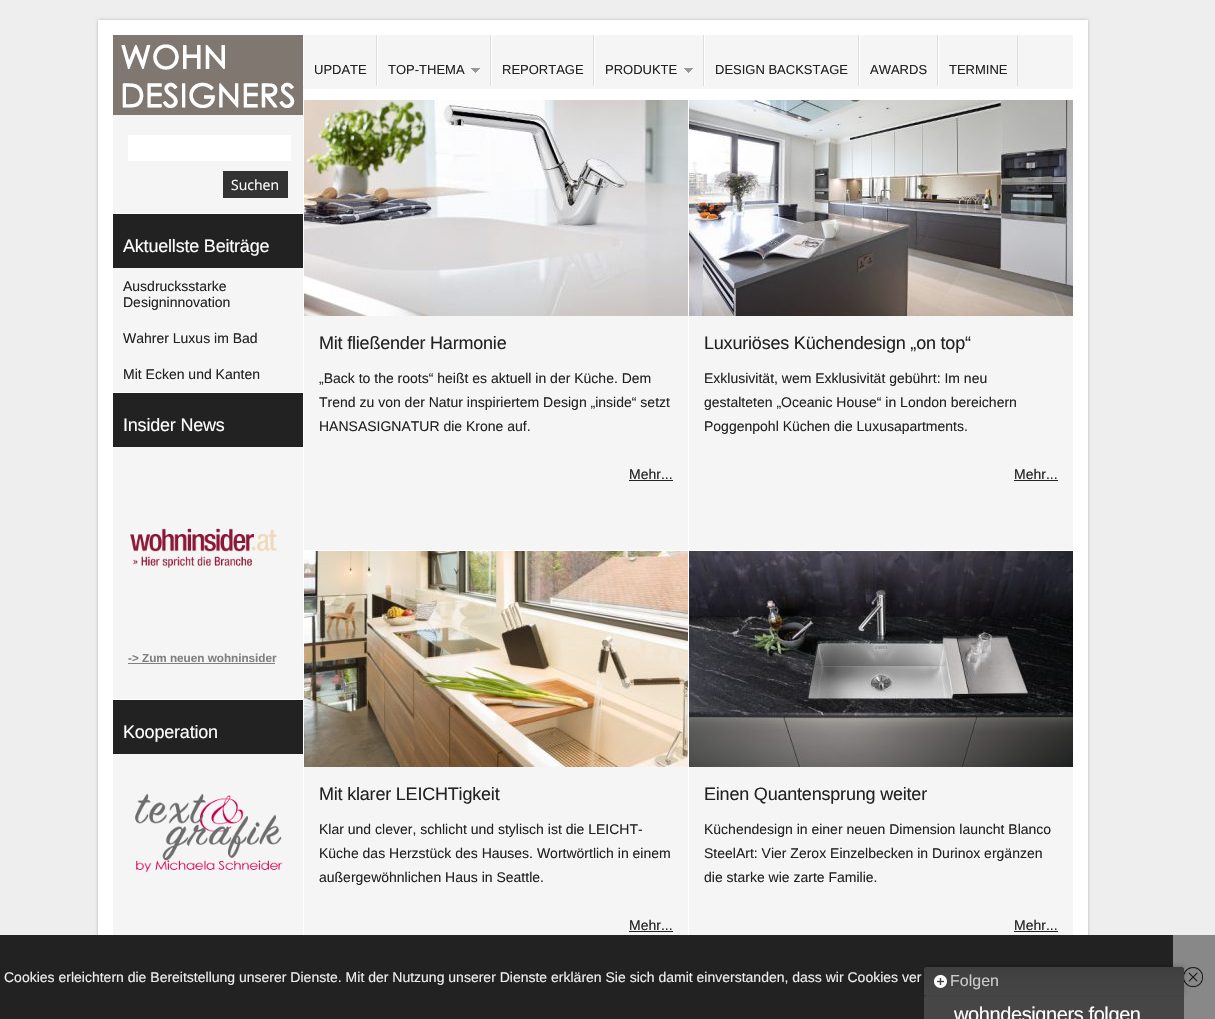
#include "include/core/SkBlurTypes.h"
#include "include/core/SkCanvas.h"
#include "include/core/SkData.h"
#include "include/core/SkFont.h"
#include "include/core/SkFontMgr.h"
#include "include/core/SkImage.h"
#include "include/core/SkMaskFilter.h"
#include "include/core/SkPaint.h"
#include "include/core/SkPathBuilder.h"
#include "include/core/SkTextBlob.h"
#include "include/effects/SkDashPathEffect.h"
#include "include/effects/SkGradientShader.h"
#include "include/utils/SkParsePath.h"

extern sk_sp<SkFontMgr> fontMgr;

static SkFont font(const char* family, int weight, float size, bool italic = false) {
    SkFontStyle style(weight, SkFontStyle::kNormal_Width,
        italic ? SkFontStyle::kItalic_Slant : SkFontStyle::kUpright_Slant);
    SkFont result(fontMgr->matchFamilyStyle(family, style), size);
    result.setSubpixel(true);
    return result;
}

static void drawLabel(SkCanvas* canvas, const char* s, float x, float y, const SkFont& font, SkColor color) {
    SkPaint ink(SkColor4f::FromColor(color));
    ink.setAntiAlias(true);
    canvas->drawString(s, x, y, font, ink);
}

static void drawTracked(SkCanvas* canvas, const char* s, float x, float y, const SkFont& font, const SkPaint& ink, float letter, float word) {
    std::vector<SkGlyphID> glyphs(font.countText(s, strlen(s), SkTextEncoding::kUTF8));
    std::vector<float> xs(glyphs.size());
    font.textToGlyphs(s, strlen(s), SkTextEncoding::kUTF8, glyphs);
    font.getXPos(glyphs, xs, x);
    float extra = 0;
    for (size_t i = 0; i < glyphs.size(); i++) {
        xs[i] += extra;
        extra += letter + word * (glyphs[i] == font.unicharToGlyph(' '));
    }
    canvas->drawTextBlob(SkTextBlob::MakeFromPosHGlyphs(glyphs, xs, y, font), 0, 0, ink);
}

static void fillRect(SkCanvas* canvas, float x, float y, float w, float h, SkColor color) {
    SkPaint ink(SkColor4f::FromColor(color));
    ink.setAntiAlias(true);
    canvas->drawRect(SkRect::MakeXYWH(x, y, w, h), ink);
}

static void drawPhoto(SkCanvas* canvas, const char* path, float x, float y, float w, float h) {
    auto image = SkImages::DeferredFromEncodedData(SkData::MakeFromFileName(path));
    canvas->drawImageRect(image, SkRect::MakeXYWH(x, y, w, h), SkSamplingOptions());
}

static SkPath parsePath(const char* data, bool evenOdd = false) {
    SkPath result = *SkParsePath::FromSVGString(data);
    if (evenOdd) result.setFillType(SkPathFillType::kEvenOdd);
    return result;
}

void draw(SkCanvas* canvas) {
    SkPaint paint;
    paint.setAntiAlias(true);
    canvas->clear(0xFFEEEEEE);
    paint.setColor(0xFFB5B5B5);
    paint.setMaskFilter(SkMaskFilter::MakeBlur(kNormal_SkBlurStyle, 1.5f));
    canvas->drawRect(SkRect::MakeXYWH(98, 20, 990, 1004), paint);
    paint.setMaskFilter(nullptr);
    fillRect(canvas, 98, 20, 990, 915, 0xFFFFFFFF);
    drawPhoto(canvas, "assets/img1.png", 113, 35, 190, 80);
    fillRect(canvas, 303, 35, 770, 54, 0xFFF5F5F5);
    fillRect(canvas, 376, 35, 1, 51, 0xFFDDDDDD);
    fillRect(canvas, 303, 35, 1, 51, 0xFFFFFFFF);
    SkFont font1 = font("Liberation Sans", 400, 13);
    drawLabel(canvas, "UPDATE", 314, 74, font1, 0xFF222222);
    fillRect(canvas, 490, 35, 1, 51, 0xFFDDDDDD);
    fillRect(canvas, 377, 35, 1, 51, 0xFFFFFFFF);
    drawLabel(canvas, "TOP-THEMA", 388, 74, font1, 0xFF222222);
    drawPhoto(canvas, "assets/img2.png", 471, 68, 9, 5);
    fillRect(canvas, 593, 35, 1, 51, 0xFFDDDDDD);
    fillRect(canvas, 491, 35, 1, 51, 0xFFFFFFFF);
    drawLabel(canvas, "REPORTAGE", 502, 74, font1, 0xFF222222);
    fillRect(canvas, 703, 35, 1, 51, 0xFFDDDDDD);
    fillRect(canvas, 594, 35, 1, 51, 0xFFFFFFFF);
    drawLabel(canvas, "PRODUKTE", 605, 74, font1, 0xFF222222);
    drawPhoto(canvas, "assets/img2.png", 684, 68, 9, 5);
    fillRect(canvas, 858, 35, 1, 51, 0xFFDDDDDD);
    fillRect(canvas, 704, 35, 1, 51, 0xFFFFFFFF);
    drawLabel(canvas, "DESIGN BACKSTAGE", 715, 74, font1, 0xFF222222);
    fillRect(canvas, 937, 35, 1, 51, 0xFFDDDDDD);
    fillRect(canvas, 859, 35, 1, 51, 0xFFFFFFFF);
    drawLabel(canvas, "AWARDS", 870, 74, font1, 0xFF222222);
    fillRect(canvas, 1017, 35, 1, 51, 0xFFDDDDDD);
    fillRect(canvas, 938, 35, 1, 51, 0xFFFFFFFF);
    drawLabel(canvas, "TERMINE", 949, 74, font1, 0xFF222222);
    fillRect(canvas, 113, 115, 190, 98, 0xFFF5F5F5);
    fillRect(canvas, 128, 135, 163, 26, 0xFFFFFFFF);
    fillRect(canvas, 223, 171, 65, 27, 0xFF333333);
    SkFont font2 = font("Open Sans", 400, 14);
    drawLabel(canvas, "Suchen", 231, 190, font2, 0xFFFFFFFF);
    fillRect(canvas, 113, 268, 190, 124, 0xFFF5F5F5);
    fillRect(canvas, 113, 214, 190, 54, 0xFF222222);
    SkFont font3 = font("Liberation Sans", 400, 18);
    paint.setColor(0xFFFFFFFF);
    drawTracked(canvas, "Aktuellste Beiträge", 123, 252, font3, paint, -0.2f, 0);
    SkFont font4 = font("Liberation Sans", 400, 14);
    drawLabel(canvas, "Ausdrucksstarke", 123, 291, font4, 0xFF222222);
    drawLabel(canvas, "Designinnovation", 123, 307, font4, 0xFF222222);
    drawLabel(canvas, "Wahrer Luxus im Bad", 123, 343, font4, 0xFF222222);
    drawLabel(canvas, "Mit Ecken und Kanten", 123, 379, font4, 0xFF222222);
    fillRect(canvas, 113, 447, 190, 252, 0xFFF5F5F5);
    fillRect(canvas, 113, 393, 190, 54, 0xFF222222);
    drawTracked(canvas, "Insider News", 123, 431, font3, paint, -0.2f, 0);
    drawPhoto(canvas, "assets/img3.png", 130, 528, 147, 40);
    SkFont font5 = font("Liberation Sans", 700, 11.7f);
    drawLabel(canvas, "-> Zum neuen wohninsider", 128, 662, font5, 0xFF808080);
    fillRect(canvas, 128, 663, 147, 1, 0xFF808080);
    fillRect(canvas, 113, 754, 190, 181, 0xFFF5F5F5);
    fillRect(canvas, 113, 700, 190, 54, 0xFF222222);
    drawTracked(canvas, "Kooperation", 123, 738, font3, paint, -0.2f, 0);
    drawPhoto(canvas, "assets/img4.png", 135, 793, 148, 80);
    fillRect(canvas, 304, 316, 384, 234, 0xFFF5F5F5);
    drawPhoto(canvas, "assets/img5.png", 304, 100, 384, 216);
    paint.setColor(0xFF222222);
    drawTracked(canvas, "Mit fließender Harmonie", 319, 349, font3, paint, -0.2f, 0);
    drawLabel(canvas, "„Back to the roots“ heißt es aktuell in der Küche. Dem", 319, 383, font4, 0xFF222222);
    drawLabel(canvas, "Trend zu von der Natur inspiriertem Design „inside“ setzt", 319, 407, font4, 0xFF222222);
    drawLabel(canvas, "HANSASIGNATUR die Krone auf.", 319, 431, font4, 0xFF222222);
    drawLabel(canvas, "Mehr...", 629, 479, font4, 0xFF222222);
    fillRect(canvas, 629, 480, 44, 1, 0xFF222222);
    fillRect(canvas, 689, 316, 384, 234, 0xFFF5F5F5);
    drawPhoto(canvas, "assets/img6.png", 689, 100, 384, 216);
    drawTracked(canvas, "Luxuriöses Küchendesign „on top“", 704, 349, font3, paint, -0.2f, 0);
    drawLabel(canvas, "Exklusivität, wem Exklusivität gebührt: Im neu", 704, 383, font4, 0xFF222222);
    drawLabel(canvas, "gestalteten „Oceanic House“ in London bereichern", 704, 407, font4, 0xFF222222);
    drawLabel(canvas, "Poggenpohl Küchen die Luxusapartments.", 704, 431, font4, 0xFF222222);
    drawLabel(canvas, "Mehr...", 1014, 479, font4, 0xFF222222);
    fillRect(canvas, 1014, 480, 44, 1, 0xFF222222);
    fillRect(canvas, 304, 767, 384, 168, 0xFFF5F5F5);
    drawPhoto(canvas, "assets/img7.png", 304, 551, 384, 216);
    drawTracked(canvas, "Mit klarer LEICHTigkeit", 319, 800, font3, paint, -0.2f, 0);
    drawLabel(canvas, "Klar und clever, schlicht und stylisch ist die LEICHT-", 319, 834, font4, 0xFF222222);
    drawLabel(canvas, "Küche das Herzstück des Hauses. Wortwörtlich in einem", 319, 858, font4, 0xFF222222);
    drawLabel(canvas, "außergewöhnlichen Haus in Seattle.", 319, 882, font4, 0xFF222222);
    drawLabel(canvas, "Mehr...", 629, 930, font4, 0xFF222222);
    fillRect(canvas, 629, 931, 44, 1, 0xFF222222);
    fillRect(canvas, 689, 767, 384, 168, 0xFFF5F5F5);
    drawPhoto(canvas, "assets/img8.png", 689, 551, 384, 216);
    drawTracked(canvas, "Einen Quantensprung weiter", 704, 800, font3, paint, -0.2f, 0);
    drawLabel(canvas, "Küchendesign in einer neuen Dimension launcht Blanco", 704, 834, font4, 0xFF222222);
    drawLabel(canvas, "SteelArt: Vier Zerox Einzelbecken in Durinox ergänzen", 704, 858, font4, 0xFF222222);
    drawLabel(canvas, "die starke wie zarte Familie.", 704, 882, font4, 0xFF222222);
    drawLabel(canvas, "Mehr...", 1014, 930, font4, 0xFF222222);
    fillRect(canvas, 1014, 931, 44, 1, 0xFF222222);
    fillRect(canvas, 0, 935, 1173, 84, 0xFF222222);
    drawLabel(canvas, "Cookies erleichtern die Bereitstellung unserer Dienste. Mit der Nutzung unserer Dienste erklären Sie sich damit einverstanden, dass wir Cookies ver", 4, 982, font4, 0xFFEEEEEE);
    fillRect(canvas, 1173, 935, 42, 84, 0xFF888888);
    drawPhoto(canvas, "assets/img9.png", 1184, 967, 19, 21);
    paint.setColor(0xFF464646);
    canvas->drawPath(parsePath("M926 995H1184V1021H924V997C924 996 925 995 926 995Z"), paint);
    paint.setColor(0x33000000);
    paint.setMaskFilter(SkMaskFilter::MakeBlur(kNormal_SkBlurStyle, 2.5f));
    canvas->drawRoundRect(SkRect::MakeXYWH(924, 966, 260, 28), 2, 2, paint);
    paint.setMaskFilter(nullptr);
    {
        const SkColor colors[] = {0xFF3F3F3F, 0xFF464646};
        const float stops[] = {0, 1};
        const SkPoint ends[] = {{924, 967}, {924, 995}};
        paint.setShader(SkGradientShader::MakeLinear(ends, colors, stops, 2, SkTileMode::kClamp));
        paint.setAlpha(255);
    }
    canvas->drawPath(parsePath("M926 967H1182C1183 967 1184 968 1184 969V995H924V969C924 968 925 967 926 967Z"), paint);
    drawPhoto(canvas, "assets/img10.png", 934, 975, 13, 13);
    SkFont font6 = font("Liberation Sans", 400, 16);
    drawLabel(canvas, "Folgen", 950, 986, font6, 0xFFCCCCCC);
    SkFont font7 = font("Liberation Sans", 400, 20);
    paint.setShader(nullptr);
    paint.setColor(0xFFFFFFFF);
    drawTracked(canvas, "wohndesigners folgen", 954, 1021, font7, paint, -0.4f, 0);
}
